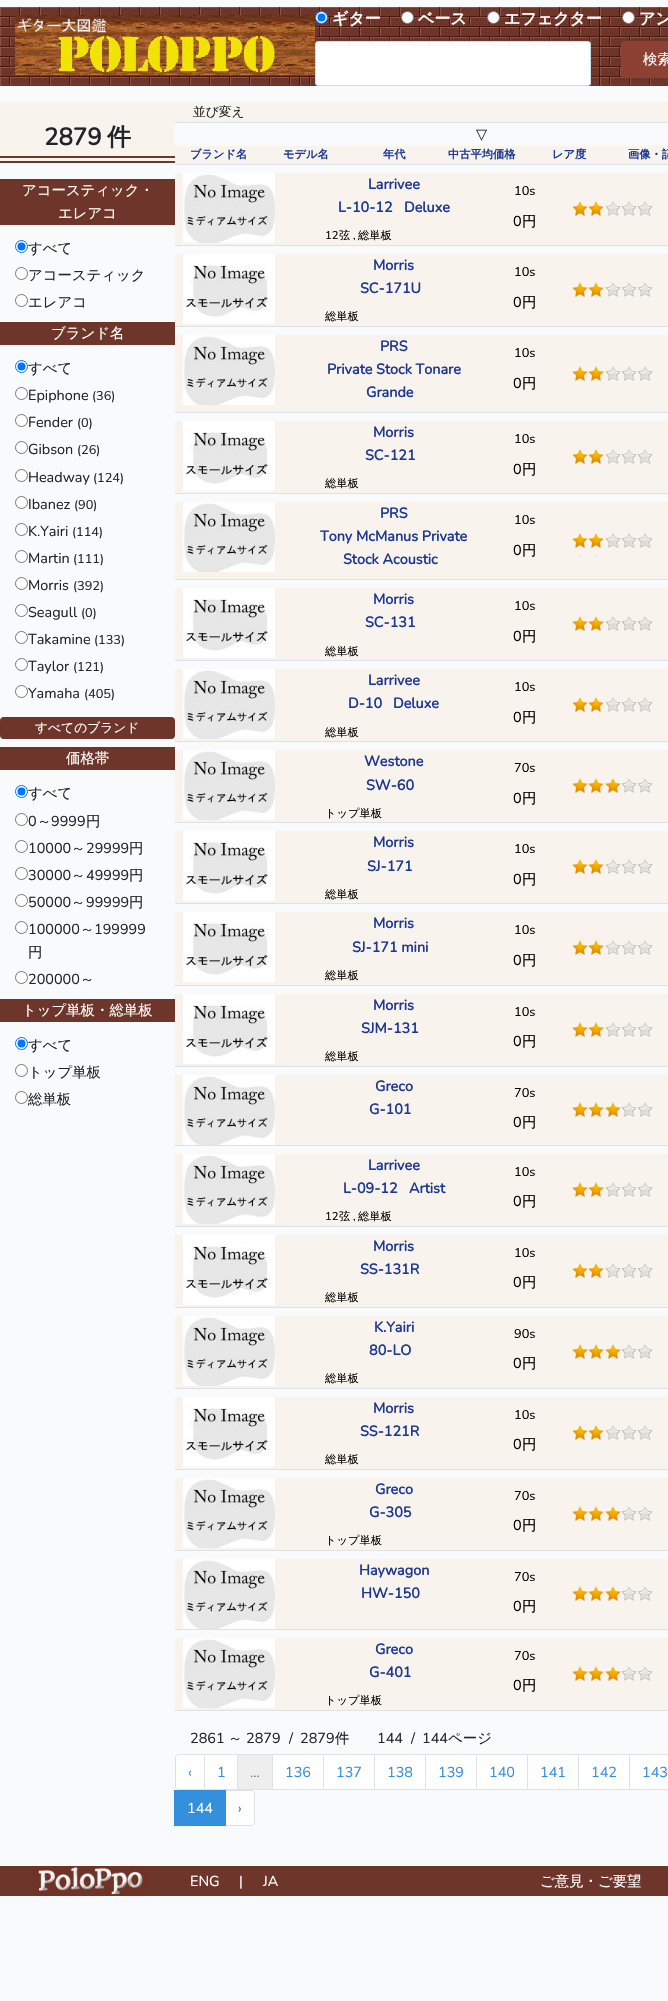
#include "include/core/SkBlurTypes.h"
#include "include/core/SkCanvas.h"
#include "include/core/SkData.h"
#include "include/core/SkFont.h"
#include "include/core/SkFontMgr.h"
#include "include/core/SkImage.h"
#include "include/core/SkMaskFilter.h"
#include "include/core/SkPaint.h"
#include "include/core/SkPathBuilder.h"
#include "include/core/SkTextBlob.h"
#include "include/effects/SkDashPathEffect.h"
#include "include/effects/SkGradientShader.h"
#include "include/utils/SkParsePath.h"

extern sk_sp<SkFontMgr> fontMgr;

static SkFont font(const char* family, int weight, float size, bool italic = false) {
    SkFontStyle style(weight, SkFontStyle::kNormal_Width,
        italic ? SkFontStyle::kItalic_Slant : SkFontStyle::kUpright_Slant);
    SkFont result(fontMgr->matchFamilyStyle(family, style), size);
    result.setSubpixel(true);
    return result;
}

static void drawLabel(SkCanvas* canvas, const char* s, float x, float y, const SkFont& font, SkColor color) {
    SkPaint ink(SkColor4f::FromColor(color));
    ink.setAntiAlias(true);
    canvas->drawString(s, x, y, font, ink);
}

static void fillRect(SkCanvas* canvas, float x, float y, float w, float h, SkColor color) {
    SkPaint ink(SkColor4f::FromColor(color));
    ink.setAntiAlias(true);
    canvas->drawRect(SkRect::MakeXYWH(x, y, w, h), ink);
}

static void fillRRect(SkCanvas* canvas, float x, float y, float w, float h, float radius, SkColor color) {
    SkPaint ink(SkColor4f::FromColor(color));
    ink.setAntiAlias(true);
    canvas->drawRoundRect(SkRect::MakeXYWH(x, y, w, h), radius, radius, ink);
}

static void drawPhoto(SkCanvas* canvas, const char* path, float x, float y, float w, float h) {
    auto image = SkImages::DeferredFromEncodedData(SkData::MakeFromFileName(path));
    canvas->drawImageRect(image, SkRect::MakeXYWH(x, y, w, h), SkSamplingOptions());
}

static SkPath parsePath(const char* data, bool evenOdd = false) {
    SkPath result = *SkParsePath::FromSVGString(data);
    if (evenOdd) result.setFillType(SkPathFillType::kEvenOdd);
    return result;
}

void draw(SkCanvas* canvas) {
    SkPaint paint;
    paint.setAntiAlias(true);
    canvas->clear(0xFFF8FAFC);
    drawPhoto(canvas, "assets/img1.png", 0, 7, 668, 79);
    drawPhoto(canvas, "assets/img2.png", 15, 15, 300, 60);
    paint.setColor(0xFFFFFFFF);
    canvas->drawCircle(321.5f, 17.5f, 6, paint);
    paint.setStroke(true);
    paint.setStrokeWidth(1);
    paint.setColor(0xFF0075FF);
    canvas->drawCircle(321.5f, 17.5f, 6, paint);
    paint.setStroke(false);
    canvas->drawCircle(321.5f, 17.5f, 4, paint);
    SkFont font1 = font("WenQuanYi Zen Hei", 700, 16);
    drawLabel(canvas, "ギター", 332, 24, font1, 0xFFFFFFFF);
    paint.setColor(0xFFFFFFFF);
    canvas->drawCircle(407.5f, 17.5f, 6, paint);
    paint.setStroke(true);
    paint.setColor(0xFF767676);
    canvas->drawCircle(407.5f, 17.5f, 6, paint);
    drawLabel(canvas, "ベース", 418, 24, font1, 0xFFFFFFFF);
    paint.setStroke(false);
    paint.setColor(0xFFFFFFFF);
    canvas->drawCircle(493.5f, 17.5f, 6, paint);
    paint.setStroke(true);
    paint.setColor(0xFF767676);
    canvas->drawCircle(493.5f, 17.5f, 6, paint);
    drawLabel(canvas, "エフェクター", 504, 24, font1, 0xFFFFFFFF);
    paint.setStroke(false);
    paint.setColor(0xFFFFFFFF);
    canvas->drawCircle(628.5f, 17.5f, 6, paint);
    paint.setStroke(true);
    paint.setColor(0xFF767676);
    canvas->drawCircle(628.5f, 17.5f, 6, paint);
    drawLabel(canvas, "アン", 639, 24, font1, 0xFFFFFFFF);
    paint.setStroke(false);
    paint.setColor(0xFFFFFFFF);
    canvas->drawRoundRect(SkRect::MakeXYWH(315.5f, 41.5f, 275, 44), 2.5f, 2.5f, paint);
    paint.setStroke(true);
    paint.setColor(0xFFCCDDEE);
    canvas->drawRoundRect(SkRect::MakeXYWH(315.5f, 41.5f, 275, 44), 2.5f, 2.5f, paint);
    fillRRect(canvas, 621, 41, 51, 37, 4, 0xFF8C4134);
    SkFont font2 = font("WenQuanYi Zen Hei", 500, 14.4f);
    drawLabel(canvas, "検索", 643, 64, font2, 0xFFFFFFFF);
    fillRect(canvas, 0, 102, 175, 59, 0xFFF8F3ED);
    fillRect(canvas, 0, 156, 175, 2, 0xFF6E362A);
    fillRect(canvas, 0, 161, 175, 2, 0xFF6E362A);
    SkFont font3 = font("Nunito", 700, 24);
    drawLabel(canvas, "2879", 44, 145, font3, 0xFF212529);
    SkFont font4 = font("WenQuanYi Zen Hei", 700, 24);
    drawLabel(canvas, "件", 107, 145, font4, 0xFF212529);
    fillRect(canvas, 0, 179, 175, 46, 0xFF6E362A);
    drawLabel(canvas, "アコースティック・", 22, 195, font2, 0xFFFFFFFF);
    drawLabel(canvas, "エレアコ", 58, 218, font2, 0xFFFFFFFF);
    paint.setStroke(false);
    paint.setColor(0xFFFFFFFF);
    canvas->drawCircle(21.5f, 246.5f, 6, paint);
    paint.setStroke(true);
    paint.setColor(0xFF0075FF);
    canvas->drawCircle(21.5f, 246.5f, 6, paint);
    paint.setStroke(false);
    canvas->drawCircle(21.5f, 246.5f, 4, paint);
    drawLabel(canvas, "すべて", 28, 253, font2, 0xFF212529);
    paint.setColor(0xFFFFFFFF);
    canvas->drawCircle(21.5f, 273.5f, 6, paint);
    paint.setStroke(true);
    paint.setColor(0xFF767676);
    canvas->drawCircle(21.5f, 273.5f, 6, paint);
    drawLabel(canvas, "アコースティック", 28, 280, font2, 0xFF212529);
    paint.setStroke(false);
    paint.setColor(0xFFFFFFFF);
    canvas->drawCircle(21.5f, 300.5f, 6, paint);
    paint.setStroke(true);
    paint.setColor(0xFF767676);
    canvas->drawCircle(21.5f, 300.5f, 6, paint);
    drawLabel(canvas, "エレアコ", 28, 307, font2, 0xFF212529);
    fillRect(canvas, 0, 322, 175, 23, 0xFF6E362A);
    drawLabel(canvas, "ブランド名", 51, 338, font2, 0xFFFFFFFF);
    paint.setStroke(false);
    paint.setColor(0xFFFFFFFF);
    canvas->drawCircle(21.5f, 366.5f, 6, paint);
    paint.setStroke(true);
    paint.setColor(0xFF0075FF);
    canvas->drawCircle(21.5f, 366.5f, 6, paint);
    paint.setStroke(false);
    canvas->drawCircle(21.5f, 366.5f, 4, paint);
    drawLabel(canvas, "すべて", 28, 373, font2, 0xFF212529);
    paint.setColor(0xFFFFFFFF);
    canvas->drawCircle(21.5f, 393.5f, 6, paint);
    paint.setStroke(true);
    paint.setColor(0xFF767676);
    canvas->drawCircle(21.5f, 393.5f, 6, paint);
    SkFont font5 = font("Nunito", 200, 14.4f);
    drawLabel(canvas, "Epiphone", 28, 400, font5, 0xFF212529);
    SkFont font6 = font("Nunito", 200, 12.75f);
    drawLabel(canvas, "(36)", 92, 400, font6, 0xFF212529);
    paint.setStroke(false);
    paint.setColor(0xFFFFFFFF);
    canvas->drawCircle(21.5f, 420.5f, 6, paint);
    paint.setStroke(true);
    paint.setColor(0xFF767676);
    canvas->drawCircle(21.5f, 420.5f, 6, paint);
    drawLabel(canvas, "Fender", 28, 427, font5, 0xFF212529);
    drawLabel(canvas, "(0)", 77, 427, font6, 0xFF212529);
    paint.setStroke(false);
    paint.setColor(0xFFFFFFFF);
    canvas->drawCircle(21.5f, 447.5f, 6, paint);
    paint.setStroke(true);
    paint.setColor(0xFF767676);
    canvas->drawCircle(21.5f, 447.5f, 6, paint);
    drawLabel(canvas, "Gibson", 28, 454, font5, 0xFF212529);
    drawLabel(canvas, "(26)", 77, 454, font6, 0xFF212529);
    paint.setStroke(false);
    paint.setColor(0xFFFFFFFF);
    canvas->drawCircle(21.5f, 475.5f, 6, paint);
    paint.setStroke(true);
    paint.setColor(0xFF767676);
    canvas->drawCircle(21.5f, 475.5f, 6, paint);
    drawLabel(canvas, "Headway", 28, 482, font5, 0xFF212529);
    drawLabel(canvas, "(124)", 93, 482, font6, 0xFF212529);
    paint.setStroke(false);
    paint.setColor(0xFFFFFFFF);
    canvas->drawCircle(21.5f, 502.5f, 6, paint);
    paint.setStroke(true);
    paint.setColor(0xFF767676);
    canvas->drawCircle(21.5f, 502.5f, 6, paint);
    drawLabel(canvas, "Ibanez", 28, 509, font5, 0xFF212529);
    drawLabel(canvas, "(90)", 74, 509, font6, 0xFF212529);
    paint.setStroke(false);
    paint.setColor(0xFFFFFFFF);
    canvas->drawCircle(21.5f, 529.5f, 6, paint);
    paint.setStroke(true);
    paint.setColor(0xFF767676);
    canvas->drawCircle(21.5f, 529.5f, 6, paint);
    drawLabel(canvas, "K.Yairi", 28, 536, font5, 0xFF212529);
    drawLabel(canvas, "(114)", 72, 536, font6, 0xFF212529);
    paint.setStroke(false);
    paint.setColor(0xFFFFFFFF);
    canvas->drawCircle(21.5f, 556.5f, 6, paint);
    paint.setStroke(true);
    paint.setColor(0xFF767676);
    canvas->drawCircle(21.5f, 556.5f, 6, paint);
    drawLabel(canvas, "Martin", 28, 563, font5, 0xFF212529);
    drawLabel(canvas, "(111)", 73, 563, font6, 0xFF212529);
    paint.setStroke(false);
    paint.setColor(0xFFFFFFFF);
    canvas->drawCircle(21.5f, 583.5f, 6, paint);
    paint.setStroke(true);
    paint.setColor(0xFF767676);
    canvas->drawCircle(21.5f, 583.5f, 6, paint);
    drawLabel(canvas, "Morris", 28, 590, font5, 0xFF212529);
    drawLabel(canvas, "(392)", 73, 590, font6, 0xFF212529);
    paint.setStroke(false);
    paint.setColor(0xFFFFFFFF);
    canvas->drawCircle(21.5f, 610.5f, 6, paint);
    paint.setStroke(true);
    paint.setColor(0xFF767676);
    canvas->drawCircle(21.5f, 610.5f, 6, paint);
    drawLabel(canvas, "Seagull", 28, 617, font5, 0xFF212529);
    drawLabel(canvas, "(0)", 81, 617, font6, 0xFF212529);
    paint.setStroke(false);
    paint.setColor(0xFFFFFFFF);
    canvas->drawCircle(21.5f, 637.5f, 6, paint);
    paint.setStroke(true);
    paint.setColor(0xFF767676);
    canvas->drawCircle(21.5f, 637.5f, 6, paint);
    drawLabel(canvas, "Takamine", 28, 644, font5, 0xFF212529);
    drawLabel(canvas, "(133)", 94, 644, font6, 0xFF212529);
    paint.setStroke(false);
    paint.setColor(0xFFFFFFFF);
    canvas->drawCircle(21.5f, 664.5f, 6, paint);
    paint.setStroke(true);
    paint.setColor(0xFF767676);
    canvas->drawCircle(21.5f, 664.5f, 6, paint);
    drawLabel(canvas, "Taylor", 28, 671, font5, 0xFF212529);
    drawLabel(canvas, "(121)", 73, 671, font6, 0xFF212529);
    paint.setStroke(false);
    paint.setColor(0xFFFFFFFF);
    canvas->drawCircle(21.5f, 691.5f, 6, paint);
    paint.setStroke(true);
    paint.setColor(0xFF767676);
    canvas->drawCircle(21.5f, 691.5f, 6, paint);
    drawLabel(canvas, "Yamaha", 28, 698, font5, 0xFF212529);
    drawLabel(canvas, "(405)", 84, 698, font6, 0xFF212529);
    fillRRect(canvas, 0, 717, 175, 22, 4, 0xFF6E362A);
    SkFont font7 = font("WenQuanYi Zen Hei", 500, 12.75f);
    drawLabel(canvas, "すべてのブランド", 35, 732, font7, 0xFFFFFFFF);
    fillRect(canvas, 0, 747, 175, 23, 0xFF6E362A);
    drawLabel(canvas, "価格帯", 66, 763, font2, 0xFFFFFFFF);
    paint.setStroke(false);
    paint.setColor(0xFFFFFFFF);
    canvas->drawCircle(21.5f, 791.5f, 6, paint);
    paint.setStroke(true);
    paint.setColor(0xFF0075FF);
    canvas->drawCircle(21.5f, 791.5f, 6, paint);
    paint.setStroke(false);
    canvas->drawCircle(21.5f, 791.5f, 4, paint);
    drawLabel(canvas, "すべて", 28, 798, font2, 0xFF212529);
    paint.setColor(0xFFFFFFFF);
    canvas->drawCircle(21.5f, 819.5f, 6, paint);
    paint.setStroke(true);
    paint.setColor(0xFF767676);
    canvas->drawCircle(21.5f, 819.5f, 6, paint);
    drawLabel(canvas, "0", 28, 826, font5, 0xFF212529);
    drawLabel(canvas, "～", 37, 826, font2, 0xFF212529);
    drawLabel(canvas, "9999", 51, 826, font5, 0xFF212529);
    drawLabel(canvas, "円", 86, 826, font2, 0xFF212529);
    paint.setStroke(false);
    paint.setColor(0xFFFFFFFF);
    canvas->drawCircle(21.5f, 846.5f, 6, paint);
    paint.setStroke(true);
    paint.setColor(0xFF767676);
    canvas->drawCircle(21.5f, 846.5f, 6, paint);
    drawLabel(canvas, "10000", 28, 853, font5, 0xFF212529);
    drawLabel(canvas, "～", 71, 853, font2, 0xFF212529);
    drawLabel(canvas, "29999", 86, 853, font5, 0xFF212529);
    drawLabel(canvas, "円", 129, 853, font2, 0xFF212529);
    paint.setStroke(false);
    paint.setColor(0xFFFFFFFF);
    canvas->drawCircle(21.5f, 873.5f, 6, paint);
    paint.setStroke(true);
    paint.setColor(0xFF767676);
    canvas->drawCircle(21.5f, 873.5f, 6, paint);
    drawLabel(canvas, "30000", 28, 880, font5, 0xFF212529);
    drawLabel(canvas, "～", 71, 880, font2, 0xFF212529);
    drawLabel(canvas, "49999", 86, 880, font5, 0xFF212529);
    drawLabel(canvas, "円", 129, 880, font2, 0xFF212529);
    paint.setStroke(false);
    paint.setColor(0xFFFFFFFF);
    canvas->drawCircle(21.5f, 900.5f, 6, paint);
    paint.setStroke(true);
    paint.setColor(0xFF767676);
    canvas->drawCircle(21.5f, 900.5f, 6, paint);
    drawLabel(canvas, "50000", 28, 907, font5, 0xFF212529);
    drawLabel(canvas, "～", 71, 907, font2, 0xFF212529);
    drawLabel(canvas, "99999", 86, 907, font5, 0xFF212529);
    drawLabel(canvas, "円", 129, 907, font2, 0xFF212529);
    paint.setStroke(false);
    paint.setColor(0xFFFFFFFF);
    canvas->drawCircle(21.5f, 927.5f, 6, paint);
    paint.setStroke(true);
    paint.setColor(0xFF767676);
    canvas->drawCircle(21.5f, 927.5f, 6, paint);
    drawLabel(canvas, "100000", 28, 934, font5, 0xFF212529);
    drawLabel(canvas, "～", 80, 934, font2, 0xFF212529);
    drawLabel(canvas, "199999", 94, 934, font5, 0xFF212529);
    drawLabel(canvas, "円", 28, 957, font2, 0xFF212529);
    paint.setStroke(false);
    paint.setColor(0xFFFFFFFF);
    canvas->drawCircle(21.5f, 977.5f, 6, paint);
    paint.setStroke(true);
    paint.setColor(0xFF767676);
    canvas->drawCircle(21.5f, 977.5f, 6, paint);
    drawLabel(canvas, "200000", 28, 984, font5, 0xFF212529);
    drawLabel(canvas, "～", 80, 984, font2, 0xFF212529);
    fillRect(canvas, 0, 999, 175, 23, 0xFF6E362A);
    drawLabel(canvas, "トップ単板・総単板", 22, 1015, font2, 0xFFFFFFFF);
    paint.setStroke(false);
    paint.setColor(0xFFFFFFFF);
    canvas->drawCircle(21.5f, 1043.5f, 6, paint);
    paint.setStroke(true);
    paint.setColor(0xFF0075FF);
    canvas->drawCircle(21.5f, 1043.5f, 6, paint);
    paint.setStroke(false);
    canvas->drawCircle(21.5f, 1043.5f, 4, paint);
    drawLabel(canvas, "すべて", 28, 1050, font2, 0xFF212529);
    paint.setColor(0xFFFFFFFF);
    canvas->drawCircle(21.5f, 1070.5f, 6, paint);
    paint.setStroke(true);
    paint.setColor(0xFF767676);
    canvas->drawCircle(21.5f, 1070.5f, 6, paint);
    drawLabel(canvas, "トップ単板", 28, 1077, font2, 0xFF212529);
    paint.setStroke(false);
    paint.setColor(0xFFFFFFFF);
    canvas->drawCircle(21.5f, 1097.5f, 6, paint);
    paint.setStroke(true);
    paint.setColor(0xFF767676);
    canvas->drawCircle(21.5f, 1097.5f, 6, paint);
    drawLabel(canvas, "総単板", 28, 1104, font2, 0xFF212529);
    fillRect(canvas, 175, 102, 493, 20, 0xFFF8F3ED);
    fillRect(canvas, 175, 122, 493, 1, 0xFFDEE2E6);
    drawLabel(canvas, "並び変え", 193, 116, font7, 0xFF212529);
    SkFont font8 = font("DejaVu Sans", 400, 14.4f);
    drawLabel(canvas, "▽", 476, 139, font8, 0xFF212529);
    fillRect(canvas, 175, 146, 493, 18, 0xFFF8F3ED);
    fillRect(canvas, 175, 164, 493, 1, 0xFFDEE2E6);
    SkFont font9 = font("WenQuanYi Zen Hei", 700, 11.25f);
    drawLabel(canvas, "ブランド名", 190, 158, font9, 0xFF1D3994);
    drawLabel(canvas, "モデル名", 283, 158, font9, 0xFF1D3994);
    drawLabel(canvas, "年代", 383, 158, font9, 0xFF1D3994);
    drawLabel(canvas, "中古平均価格", 448, 158, font9, 0xFF1D3994);
    drawLabel(canvas, "レア度", 552, 158, font9, 0xFF1D3994);
    drawLabel(canvas, "画像・記", 628, 158, font9, 0xFF1D3994);
    fillRect(canvas, 175, 173, 493, 72, 0xFFF8F3ED);
    fillRect(canvas, 175, 245, 493, 1, 0xFFDEE2E6);
    drawPhoto(canvas, "assets/img3.png", 183, 173, 92, 70);
    SkFont font10 = font("Nunito", 700, 14.4f);
    drawLabel(canvas, "Larrivee", 368, 189, font10, 0xFF1D3994);
    drawLabel(canvas, "L-10-12", 338, 212, font10, 0xFF1D3994);
    drawLabel(canvas, "Deluxe", 404, 212, font10, 0xFF1D3994);
    SkFont font11 = font("Nunito", 200, 11.25f);
    drawLabel(canvas, "12", 325, 239, font11, 0xFF000000);
    SkFont font12 = font("WenQuanYi Zen Hei", 500, 11.25f);
    drawLabel(canvas, "弦", 339, 239, font12, 0xFF000000);
    drawLabel(canvas, ",", 353, 239, font11, 0xFF000000);
    drawLabel(canvas, "総単板", 358, 239, font12, 0xFF000000);
    drawLabel(canvas, "10s", 514, 195, font6, 0xFF000000);
    drawLabel(canvas, "0", 513, 226, font5, 0xFF000000);
    drawLabel(canvas, "円", 522, 226, font2, 0xFF000000);
    drawPhoto(canvas, "assets/img4.png", 572, 201, 16, 15);
    drawPhoto(canvas, "assets/img4.png", 588, 201, 16, 15);
    drawPhoto(canvas, "assets/img5.png", 605, 201, 16, 15);
    drawPhoto(canvas, "assets/img5.png", 621, 201, 16, 15);
    drawPhoto(canvas, "assets/img5.png", 637, 201, 16, 15);
    fillRect(canvas, 175, 254, 493, 72, 0xFFF8F3ED);
    fillRect(canvas, 175, 326, 493, 1, 0xFFDEE2E6);
    drawPhoto(canvas, "assets/img6.png", 183, 254, 92, 70);
    drawLabel(canvas, "Morris", 373, 270, font10, 0xFF1D3994);
    drawLabel(canvas, "SC-171U", 360, 293, font10, 0xFF1D3994);
    drawLabel(canvas, "総単板", 325, 320, font12, 0xFF000000);
    drawLabel(canvas, "10s", 514, 276, font6, 0xFF000000);
    drawLabel(canvas, "0", 513, 307, font5, 0xFF000000);
    drawLabel(canvas, "円", 522, 307, font2, 0xFF000000);
    drawPhoto(canvas, "assets/img4.png", 572, 282, 16, 15);
    drawPhoto(canvas, "assets/img4.png", 588, 282, 16, 15);
    drawPhoto(canvas, "assets/img5.png", 605, 282, 16, 15);
    drawPhoto(canvas, "assets/img5.png", 621, 282, 16, 15);
    drawPhoto(canvas, "assets/img5.png", 637, 282, 16, 15);
    fillRect(canvas, 175, 335, 493, 77, 0xFFF8F3ED);
    fillRect(canvas, 175, 412, 493, 1, 0xFFDEE2E6);
    drawPhoto(canvas, "assets/img3.png", 183, 335, 92, 70);
    drawLabel(canvas, "PRS", 380, 351, font10, 0xFF1D3994);
    drawLabel(canvas, "Private Stock Tonare", 327, 374, font10, 0xFF1D3994);
    drawLabel(canvas, "Grande", 366, 397, font10, 0xFF1D3994);
    drawLabel(canvas, "10s", 514, 357, font6, 0xFF000000);
    drawLabel(canvas, "0", 513, 388, font5, 0xFF000000);
    drawLabel(canvas, "円", 522, 388, font2, 0xFF000000);
    drawPhoto(canvas, "assets/img4.png", 572, 366, 16, 15);
    drawPhoto(canvas, "assets/img4.png", 588, 366, 16, 15);
    drawPhoto(canvas, "assets/img5.png", 605, 366, 16, 15);
    drawPhoto(canvas, "assets/img5.png", 621, 366, 16, 15);
    drawPhoto(canvas, "assets/img5.png", 637, 366, 16, 15);
    fillRect(canvas, 175, 421, 493, 72, 0xFFF8F3ED);
    fillRect(canvas, 175, 493, 493, 1, 0xFFDEE2E6);
    drawPhoto(canvas, "assets/img6.png", 183, 421, 92, 70);
    drawLabel(canvas, "Morris", 373, 437, font10, 0xFF1D3994);
    drawLabel(canvas, "SC-121", 365, 460, font10, 0xFF1D3994);
    drawLabel(canvas, "総単板", 325, 487, font12, 0xFF000000);
    drawLabel(canvas, "10s", 514, 443, font6, 0xFF000000);
    drawLabel(canvas, "0", 513, 474, font5, 0xFF000000);
    drawLabel(canvas, "円", 522, 474, font2, 0xFF000000);
    drawPhoto(canvas, "assets/img4.png", 572, 449, 16, 15);
    drawPhoto(canvas, "assets/img4.png", 588, 449, 16, 15);
    drawPhoto(canvas, "assets/img5.png", 605, 449, 16, 15);
    drawPhoto(canvas, "assets/img5.png", 621, 449, 16, 15);
    drawPhoto(canvas, "assets/img5.png", 637, 449, 16, 15);
    fillRect(canvas, 175, 502, 493, 77, 0xFFF8F3ED);
    fillRect(canvas, 175, 579, 493, 1, 0xFFDEE2E6);
    drawPhoto(canvas, "assets/img3.png", 183, 502, 92, 70);
    drawLabel(canvas, "PRS", 380, 518, font10, 0xFF1D3994);
    drawLabel(canvas, "Tony McManus Private", 320, 541, font10, 0xFF1D3994);
    drawLabel(canvas, "Stock Acoustic", 343, 564, font10, 0xFF1D3994);
    drawLabel(canvas, "10s", 514, 524, font6, 0xFF000000);
    drawLabel(canvas, "0", 513, 555, font5, 0xFF000000);
    drawLabel(canvas, "円", 522, 555, font2, 0xFF000000);
    drawPhoto(canvas, "assets/img4.png", 572, 533, 16, 15);
    drawPhoto(canvas, "assets/img4.png", 588, 533, 16, 15);
    drawPhoto(canvas, "assets/img5.png", 605, 533, 16, 15);
    drawPhoto(canvas, "assets/img5.png", 621, 533, 16, 15);
    drawPhoto(canvas, "assets/img5.png", 637, 533, 16, 15);
    fillRect(canvas, 175, 588, 493, 72, 0xFFF8F3ED);
    fillRect(canvas, 175, 660, 493, 1, 0xFFDEE2E6);
    drawPhoto(canvas, "assets/img6.png", 183, 588, 92, 70);
    drawLabel(canvas, "Morris", 373, 604, font10, 0xFF1D3994);
    drawLabel(canvas, "SC-131", 365, 627, font10, 0xFF1D3994);
    drawLabel(canvas, "総単板", 325, 655, font12, 0xFF000000);
    drawLabel(canvas, "10s", 514, 610, font6, 0xFF000000);
    drawLabel(canvas, "0", 513, 641, font5, 0xFF000000);
    drawLabel(canvas, "円", 522, 641, font2, 0xFF000000);
    drawPhoto(canvas, "assets/img4.png", 572, 616, 16, 15);
    drawPhoto(canvas, "assets/img4.png", 588, 616, 16, 15);
    drawPhoto(canvas, "assets/img5.png", 605, 616, 16, 15);
    drawPhoto(canvas, "assets/img5.png", 621, 616, 16, 15);
    drawPhoto(canvas, "assets/img5.png", 637, 616, 16, 15);
    fillRect(canvas, 175, 669, 493, 72, 0xFFF8F3ED);
    fillRect(canvas, 175, 741, 493, 1, 0xFFDEE2E6);
    drawPhoto(canvas, "assets/img7.png", 183, 669, 92, 70);
    drawLabel(canvas, "Larrivee", 368, 685, font10, 0xFF1D3994);
    drawLabel(canvas, "D-10", 348, 708, font10, 0xFF1D3994);
    drawLabel(canvas, "Deluxe", 393, 708, font10, 0xFF1D3994);
    drawLabel(canvas, "総単板", 325, 736, font12, 0xFF000000);
    drawLabel(canvas, "10s", 514, 691, font6, 0xFF000000);
    drawLabel(canvas, "0", 513, 722, font5, 0xFF000000);
    drawLabel(canvas, "円", 522, 722, font2, 0xFF000000);
    drawPhoto(canvas, "assets/img4.png", 572, 697, 16, 15);
    drawPhoto(canvas, "assets/img4.png", 588, 697, 16, 15);
    drawPhoto(canvas, "assets/img5.png", 605, 697, 16, 15);
    drawPhoto(canvas, "assets/img5.png", 621, 697, 16, 15);
    drawPhoto(canvas, "assets/img5.png", 637, 697, 16, 15);
    fillRect(canvas, 175, 750, 493, 72, 0xFFF8F3ED);
    fillRect(canvas, 175, 822, 493, 1, 0xFFDEE2E6);
    drawPhoto(canvas, "assets/img3.png", 183, 750, 92, 70);
    drawLabel(canvas, "Westone", 364, 766, font10, 0xFF1D3994);
    drawLabel(canvas, "SW-60", 366, 790, font10, 0xFF1D3994);
    drawLabel(canvas, "トップ単板", 325, 817, font12, 0xFF000000);
    drawLabel(canvas, "70s", 514, 772, font6, 0xFF000000);
    drawLabel(canvas, "0", 513, 803, font5, 0xFF000000);
    drawLabel(canvas, "円", 522, 803, font2, 0xFF000000);
    drawPhoto(canvas, "assets/img4.png", 572, 778, 16, 15);
    drawPhoto(canvas, "assets/img4.png", 588, 778, 16, 15);
    drawPhoto(canvas, "assets/img4.png", 605, 778, 16, 15);
    drawPhoto(canvas, "assets/img5.png", 621, 778, 16, 15);
    drawPhoto(canvas, "assets/img5.png", 637, 778, 16, 15);
    fillRect(canvas, 175, 831, 493, 72, 0xFFF8F3ED);
    fillRect(canvas, 175, 903, 493, 1, 0xFFDEE2E6);
    drawPhoto(canvas, "assets/img6.png", 183, 831, 92, 70);
    drawLabel(canvas, "Morris", 373, 847, font10, 0xFF1D3994);
    drawLabel(canvas, "SJ-171", 367, 871, font10, 0xFF1D3994);
    drawLabel(canvas, "総単板", 325, 898, font12, 0xFF000000);
    drawLabel(canvas, "10s", 514, 853, font6, 0xFF000000);
    drawLabel(canvas, "0", 513, 884, font5, 0xFF000000);
    drawLabel(canvas, "円", 522, 884, font2, 0xFF000000);
    drawPhoto(canvas, "assets/img4.png", 572, 859, 16, 15);
    drawPhoto(canvas, "assets/img4.png", 588, 859, 16, 15);
    drawPhoto(canvas, "assets/img5.png", 605, 859, 16, 15);
    drawPhoto(canvas, "assets/img5.png", 621, 859, 16, 15);
    drawPhoto(canvas, "assets/img5.png", 637, 859, 16, 15);
    fillRect(canvas, 175, 912, 493, 73, 0xFFF8F3ED);
    fillRect(canvas, 175, 985, 493, 1, 0xFFDEE2E6);
    drawPhoto(canvas, "assets/img6.png", 183, 912, 92, 70);
    drawLabel(canvas, "Morris", 373, 928, font10, 0xFF1D3994);
    drawLabel(canvas, "SJ-171 mini", 352, 952, font10, 0xFF1D3994);
    drawLabel(canvas, "総単板", 325, 979, font12, 0xFF000000);
    drawLabel(canvas, "10s", 514, 934, font6, 0xFF000000);
    drawLabel(canvas, "0", 513, 965, font5, 0xFF000000);
    drawLabel(canvas, "円", 522, 965, font2, 0xFF000000);
    drawPhoto(canvas, "assets/img4.png", 572, 940, 16, 15);
    drawPhoto(canvas, "assets/img4.png", 588, 940, 16, 15);
    drawPhoto(canvas, "assets/img5.png", 605, 940, 16, 15);
    drawPhoto(canvas, "assets/img5.png", 621, 940, 16, 15);
    drawPhoto(canvas, "assets/img5.png", 637, 940, 16, 15);
    fillRect(canvas, 175, 994, 493, 72, 0xFFF8F3ED);
    fillRect(canvas, 175, 1066, 493, 1, 0xFFDEE2E6);
    drawPhoto(canvas, "assets/img6.png", 183, 994, 92, 70);
    drawLabel(canvas, "Morris", 373, 1010, font10, 0xFF1D3994);
    drawLabel(canvas, "SJM-131", 361, 1033, font10, 0xFF1D3994);
    drawLabel(canvas, "総単板", 325, 1060, font12, 0xFF000000);
    drawLabel(canvas, "10s", 514, 1016, font6, 0xFF000000);
    drawLabel(canvas, "0", 513, 1046, font5, 0xFF000000);
    drawLabel(canvas, "円", 522, 1046, font2, 0xFF000000);
    drawPhoto(canvas, "assets/img4.png", 572, 1022, 16, 15);
    drawPhoto(canvas, "assets/img4.png", 588, 1022, 16, 15);
    drawPhoto(canvas, "assets/img5.png", 605, 1022, 16, 15);
    drawPhoto(canvas, "assets/img5.png", 621, 1022, 16, 15);
    drawPhoto(canvas, "assets/img5.png", 637, 1022, 16, 15);
    fillRect(canvas, 175, 1075, 493, 70, 0xFFF8F3ED);
    fillRect(canvas, 175, 1145, 493, 1, 0xFFDEE2E6);
    drawPhoto(canvas, "assets/img3.png", 183, 1075, 92, 70);
    drawLabel(canvas, "Greco", 375, 1091, font10, 0xFF1D3994);
    drawLabel(canvas, "G-101", 369, 1114, font10, 0xFF1D3994);
    drawLabel(canvas, "70s", 514, 1097, font6, 0xFF000000);
    drawLabel(canvas, "0", 513, 1127, font5, 0xFF000000);
    drawLabel(canvas, "円", 522, 1127, font2, 0xFF000000);
    drawPhoto(canvas, "assets/img4.png", 572, 1102, 16, 15);
    drawPhoto(canvas, "assets/img4.png", 588, 1102, 16, 15);
    drawPhoto(canvas, "assets/img4.png", 605, 1102, 16, 15);
    drawPhoto(canvas, "assets/img5.png", 621, 1102, 16, 15);
    drawPhoto(canvas, "assets/img5.png", 637, 1102, 16, 15);
    fillRect(canvas, 175, 1154, 493, 72, 0xFFF8F3ED);
    fillRect(canvas, 175, 1226, 493, 1, 0xFFDEE2E6);
    drawPhoto(canvas, "assets/img3.png", 183, 1154, 92, 70);
    drawLabel(canvas, "Larrivee", 368, 1170, font10, 0xFF1D3994);
    drawLabel(canvas, "L-09-12", 343, 1193, font10, 0xFF1D3994);
    drawLabel(canvas, "Artist", 409, 1193, font10, 0xFF1D3994);
    drawLabel(canvas, "12", 325, 1220, font11, 0xFF000000);
    drawLabel(canvas, "弦", 339, 1220, font12, 0xFF000000);
    drawLabel(canvas, ",", 353, 1220, font11, 0xFF000000);
    drawLabel(canvas, "総単板", 358, 1220, font12, 0xFF000000);
    drawLabel(canvas, "10s", 514, 1176, font6, 0xFF000000);
    drawLabel(canvas, "0", 513, 1206, font5, 0xFF000000);
    drawLabel(canvas, "円", 522, 1206, font2, 0xFF000000);
    drawPhoto(canvas, "assets/img4.png", 572, 1182, 16, 15);
    drawPhoto(canvas, "assets/img4.png", 588, 1182, 16, 15);
    drawPhoto(canvas, "assets/img5.png", 605, 1182, 16, 15);
    drawPhoto(canvas, "assets/img5.png", 621, 1182, 16, 15);
    drawPhoto(canvas, "assets/img5.png", 637, 1182, 16, 15);
    fillRect(canvas, 175, 1235, 493, 72, 0xFFF8F3ED);
    fillRect(canvas, 175, 1307, 493, 1, 0xFFDEE2E6);
    drawPhoto(canvas, "assets/img6.png", 183, 1235, 92, 70);
    drawLabel(canvas, "Morris", 373, 1251, font10, 0xFF1D3994);
    drawLabel(canvas, "SS-131R", 360, 1274, font10, 0xFF1D3994);
    drawLabel(canvas, "総単板", 325, 1301, font12, 0xFF000000);
    drawLabel(canvas, "10s", 514, 1257, font6, 0xFF000000);
    drawLabel(canvas, "0", 513, 1287, font5, 0xFF000000);
    drawLabel(canvas, "円", 522, 1287, font2, 0xFF000000);
    drawPhoto(canvas, "assets/img4.png", 572, 1263, 16, 15);
    drawPhoto(canvas, "assets/img4.png", 588, 1263, 16, 15);
    drawPhoto(canvas, "assets/img5.png", 605, 1263, 16, 15);
    drawPhoto(canvas, "assets/img5.png", 621, 1263, 16, 15);
    drawPhoto(canvas, "assets/img5.png", 637, 1263, 16, 15);
    fillRect(canvas, 175, 1316, 493, 72, 0xFFF8F3ED);
    fillRect(canvas, 175, 1388, 493, 1, 0xFFDEE2E6);
    drawPhoto(canvas, "assets/img3.png", 183, 1316, 92, 70);
    drawLabel(canvas, "K.Yairi", 374, 1332, font10, 0xFF1D3994);
    drawLabel(canvas, "80-LO", 369, 1355, font10, 0xFF1D3994);
    drawLabel(canvas, "総単板", 325, 1382, font12, 0xFF000000);
    drawLabel(canvas, "90s", 514, 1338, font6, 0xFF000000);
    drawLabel(canvas, "0", 513, 1368, font5, 0xFF000000);
    drawLabel(canvas, "円", 522, 1368, font2, 0xFF000000);
    drawPhoto(canvas, "assets/img4.png", 572, 1344, 16, 15);
    drawPhoto(canvas, "assets/img4.png", 588, 1344, 16, 15);
    drawPhoto(canvas, "assets/img4.png", 605, 1344, 16, 15);
    drawPhoto(canvas, "assets/img5.png", 621, 1344, 16, 15);
    drawPhoto(canvas, "assets/img5.png", 637, 1344, 16, 15);
    fillRect(canvas, 175, 1397, 493, 72, 0xFFF8F3ED);
    fillRect(canvas, 175, 1469, 493, 1, 0xFFDEE2E6);
    drawPhoto(canvas, "assets/img6.png", 183, 1397, 92, 70);
    drawLabel(canvas, "Morris", 373, 1413, font10, 0xFF1D3994);
    drawLabel(canvas, "SS-121R", 360, 1436, font10, 0xFF1D3994);
    drawLabel(canvas, "総単板", 325, 1463, font12, 0xFF000000);
    drawLabel(canvas, "10s", 514, 1419, font6, 0xFF000000);
    drawLabel(canvas, "0", 513, 1449, font5, 0xFF000000);
    drawLabel(canvas, "円", 522, 1449, font2, 0xFF000000);
    drawPhoto(canvas, "assets/img4.png", 572, 1425, 16, 15);
    drawPhoto(canvas, "assets/img4.png", 588, 1425, 16, 15);
    drawPhoto(canvas, "assets/img5.png", 605, 1425, 16, 15);
    drawPhoto(canvas, "assets/img5.png", 621, 1425, 16, 15);
    drawPhoto(canvas, "assets/img5.png", 637, 1425, 16, 15);
    fillRect(canvas, 175, 1478, 493, 72, 0xFFF8F3ED);
    fillRect(canvas, 175, 1550, 493, 1, 0xFFDEE2E6);
    drawPhoto(canvas, "assets/img3.png", 183, 1478, 92, 70);
    drawLabel(canvas, "Greco", 375, 1494, font10, 0xFF1D3994);
    drawLabel(canvas, "G-305", 369, 1517, font10, 0xFF1D3994);
    drawLabel(canvas, "トップ単板", 325, 1544, font12, 0xFF000000);
    drawLabel(canvas, "70s", 514, 1500, font6, 0xFF000000);
    drawLabel(canvas, "0", 513, 1530, font5, 0xFF000000);
    drawLabel(canvas, "円", 522, 1530, font2, 0xFF000000);
    drawPhoto(canvas, "assets/img4.png", 572, 1506, 16, 15);
    drawPhoto(canvas, "assets/img4.png", 588, 1506, 16, 15);
    drawPhoto(canvas, "assets/img4.png", 605, 1506, 16, 15);
    drawPhoto(canvas, "assets/img5.png", 621, 1506, 16, 15);
    drawPhoto(canvas, "assets/img5.png", 637, 1506, 16, 15);
    fillRect(canvas, 175, 1559, 493, 70, 0xFFF8F3ED);
    fillRect(canvas, 175, 1629, 493, 1, 0xFFDEE2E6);
    drawPhoto(canvas, "assets/img8.png", 183, 1559, 92, 70);
    drawLabel(canvas, "Haywagon", 359, 1575, font10, 0xFF1D3994);
    drawLabel(canvas, "HW-150", 361, 1598, font10, 0xFF1D3994);
    drawLabel(canvas, "70s", 514, 1581, font6, 0xFF000000);
    drawLabel(canvas, "0", 513, 1611, font5, 0xFF000000);
    drawLabel(canvas, "円", 522, 1611, font2, 0xFF000000);
    drawPhoto(canvas, "assets/img4.png", 572, 1586, 16, 15);
    drawPhoto(canvas, "assets/img4.png", 588, 1586, 16, 15);
    drawPhoto(canvas, "assets/img4.png", 605, 1586, 16, 15);
    drawPhoto(canvas, "assets/img5.png", 621, 1586, 16, 15);
    drawPhoto(canvas, "assets/img5.png", 637, 1586, 16, 15);
    fillRect(canvas, 175, 1638, 493, 72, 0xFFF8F3ED);
    fillRect(canvas, 175, 1710, 493, 1, 0xFFDEE2E6);
    drawPhoto(canvas, "assets/img3.png", 183, 1638, 92, 70);
    drawLabel(canvas, "Greco", 375, 1654, font10, 0xFF1D3994);
    drawLabel(canvas, "G-401", 369, 1677, font10, 0xFF1D3994);
    drawLabel(canvas, "トップ単板", 325, 1704, font12, 0xFF000000);
    drawLabel(canvas, "70s", 514, 1660, font6, 0xFF000000);
    drawLabel(canvas, "0", 513, 1690, font5, 0xFF000000);
    drawLabel(canvas, "円", 522, 1690, font2, 0xFF000000);
    drawPhoto(canvas, "assets/img4.png", 572, 1666, 16, 15);
    drawPhoto(canvas, "assets/img4.png", 588, 1666, 16, 15);
    drawPhoto(canvas, "assets/img4.png", 605, 1666, 16, 15);
    drawPhoto(canvas, "assets/img5.png", 621, 1666, 16, 15);
    drawPhoto(canvas, "assets/img5.png", 637, 1666, 16, 15);
    drawLabel(canvas, "2861", 190, 1743, font5, 0xFF212529);
    drawLabel(canvas, "～", 228, 1743, font2, 0xFF212529);
    drawLabel(canvas, "2879", 246, 1743, font5, 0xFF212529);
    drawLabel(canvas, "/", 289, 1743, font5, 0xFF212529);
    drawLabel(canvas, "2879", 300, 1743, font5, 0xFF212529);
    drawLabel(canvas, "件", 335, 1743, font2, 0xFF212529);
    drawLabel(canvas, "144", 377, 1743, font5, 0xFF212529);
    drawLabel(canvas, "/", 411, 1743, font5, 0xFF212529);
    drawLabel(canvas, "144", 422, 1743, font5, 0xFF212529);
    drawLabel(canvas, "ページ", 448, 1743, font2, 0xFF212529);
    paint.setStroke(false);
    paint.setColor(0xFFFFFFFF);
    canvas->drawPath(parsePath("M179 1754.5H204.5V1789.5H179C177 1789.5 175.5 1788 175.5 1786V1758C175.5 1756 177 1754.5 179 1754.5Z"), paint);
    paint.setStroke(true);
    paint.setColor(0xFFDEE2E6);
    canvas->drawPath(parsePath("M179 1754.5H204.5V1789.5H179C177 1789.5 175.5 1788 175.5 1786V1758C175.5 1756 177 1754.5 179 1754.5Z"), paint);
    drawLabel(canvas, "‹", 188, 1777, font5, 0xFF3490DC);
    paint.setStroke(false);
    paint.setColor(0xFFFFFFFF);
    canvas->drawRect(SkRect::MakeXYWH(204.5f, 1754.5f, 33, 35), paint);
    paint.setStroke(true);
    paint.setColor(0xFFDEE2E6);
    canvas->drawRect(SkRect::MakeXYWH(204.5f, 1754.5f, 33, 35), paint);
    drawLabel(canvas, "1", 217, 1777, font5, 0xFF3490DC);
    paint.setStroke(false);
    paint.setColor(0xFFEEEEEE);
    canvas->drawRect(SkRect::MakeXYWH(237.5f, 1754.5f, 35, 35), paint);
    paint.setStroke(true);
    paint.setColor(0xFFDEE2E6);
    canvas->drawRect(SkRect::MakeXYWH(237.5f, 1754.5f, 35, 35), paint);
    paint.setStroke(false);
    paint.setColor(0xFFFFFFFF);
    canvas->drawRect(SkRect::MakeXYWH(272.5f, 1754.5f, 51, 35), paint);
    paint.setStroke(true);
    paint.setColor(0xFFDEE2E6);
    canvas->drawRect(SkRect::MakeXYWH(272.5f, 1754.5f, 51, 35), paint);
    drawLabel(canvas, "136", 285, 1777, font5, 0xFF3490DC);
    paint.setStroke(false);
    paint.setColor(0xFFFFFFFF);
    canvas->drawRect(SkRect::MakeXYWH(323.5f, 1754.5f, 51, 35), paint);
    paint.setStroke(true);
    paint.setColor(0xFFDEE2E6);
    canvas->drawRect(SkRect::MakeXYWH(323.5f, 1754.5f, 51, 35), paint);
    drawLabel(canvas, "137", 336, 1777, font5, 0xFF3490DC);
    paint.setStroke(false);
    paint.setColor(0xFFFFFFFF);
    canvas->drawRect(SkRect::MakeXYWH(374.5f, 1754.5f, 51, 35), paint);
    paint.setStroke(true);
    paint.setColor(0xFFDEE2E6);
    canvas->drawRect(SkRect::MakeXYWH(374.5f, 1754.5f, 51, 35), paint);
    drawLabel(canvas, "138", 387, 1777, font5, 0xFF3490DC);
    paint.setStroke(false);
    paint.setColor(0xFFFFFFFF);
    canvas->drawRect(SkRect::MakeXYWH(425.5f, 1754.5f, 51, 35), paint);
    paint.setStroke(true);
    paint.setColor(0xFFDEE2E6);
    canvas->drawRect(SkRect::MakeXYWH(425.5f, 1754.5f, 51, 35), paint);
    drawLabel(canvas, "139", 438, 1777, font5, 0xFF3490DC);
    paint.setStroke(false);
    paint.setColor(0xFFFFFFFF);
    canvas->drawRect(SkRect::MakeXYWH(476.5f, 1754.5f, 51, 35), paint);
    paint.setStroke(true);
    paint.setColor(0xFFDEE2E6);
    canvas->drawRect(SkRect::MakeXYWH(476.5f, 1754.5f, 51, 35), paint);
    drawLabel(canvas, "140", 489, 1777, font5, 0xFF3490DC);
    paint.setStroke(false);
    paint.setColor(0xFFFFFFFF);
    canvas->drawRect(SkRect::MakeXYWH(527.5f, 1754.5f, 51, 35), paint);
    paint.setStroke(true);
    paint.setColor(0xFFDEE2E6);
    canvas->drawRect(SkRect::MakeXYWH(527.5f, 1754.5f, 51, 35), paint);
    drawLabel(canvas, "141", 540, 1777, font5, 0xFF3490DC);
    paint.setStroke(false);
    paint.setColor(0xFFFFFFFF);
    canvas->drawRect(SkRect::MakeXYWH(578.5f, 1754.5f, 51, 35), paint);
    paint.setStroke(true);
    paint.setColor(0xFFDEE2E6);
    canvas->drawRect(SkRect::MakeXYWH(578.5f, 1754.5f, 51, 35), paint);
    drawLabel(canvas, "142", 591, 1777, font5, 0xFF3490DC);
    paint.setStroke(false);
    paint.setColor(0xFFFFFFFF);
    canvas->drawRect(SkRect::MakeXYWH(629.5f, 1754.5f, 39, 35), paint);
    paint.setStroke(true);
    paint.setColor(0xFFDEE2E6);
    canvas->drawRect(SkRect::MakeXYWH(629.5f, 1754.5f, 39, 35), paint);
    drawLabel(canvas, "143", 642, 1777, font5, 0xFF3490DC);
    drawLabel(canvas, "...", 250, 1777, font5, 0xFF6C757D);
    paint.setStroke(false);
    paint.setColor(0xFFFFFFFF);
    canvas->drawPath(parsePath("M225.5 1790.5H251C253 1790.5 254.5 1792 254.5 1794V1822C254.5 1824 253 1825.5 251 1825.5H225.5Z"), paint);
    paint.setStroke(true);
    paint.setColor(0xFFDEE2E6);
    canvas->drawPath(parsePath("M225.5 1790.5H251C253 1790.5 254.5 1792 254.5 1794V1822C254.5 1824 253 1825.5 251 1825.5H225.5Z"), paint);
    fillRect(canvas, 174, 1790, 52, 36, 0xFF3490DC);
    drawLabel(canvas, "144", 187, 1813, font5, 0xFFFFFFFF);
    drawLabel(canvas, "›", 238, 1813, font5, 0xFF6C757D);
    fillRect(canvas, 0, 1866, 668, 30, 0xFF6E362A);
    drawPhoto(canvas, "assets/img9.png", 33, 1866, 115, 30);
    drawLabel(canvas, "ENG", 190, 1886, font5, 0xFFFFFFFF);
    drawLabel(canvas, "|", 239, 1886, font5, 0xFFFFFFFF);
    drawLabel(canvas, "JA", 263, 1886, font5, 0xFFFFFFFF);
    drawLabel(canvas, "ご意見・ご要望", 540, 1886, font2, 0xFFFFFFFF);
}
